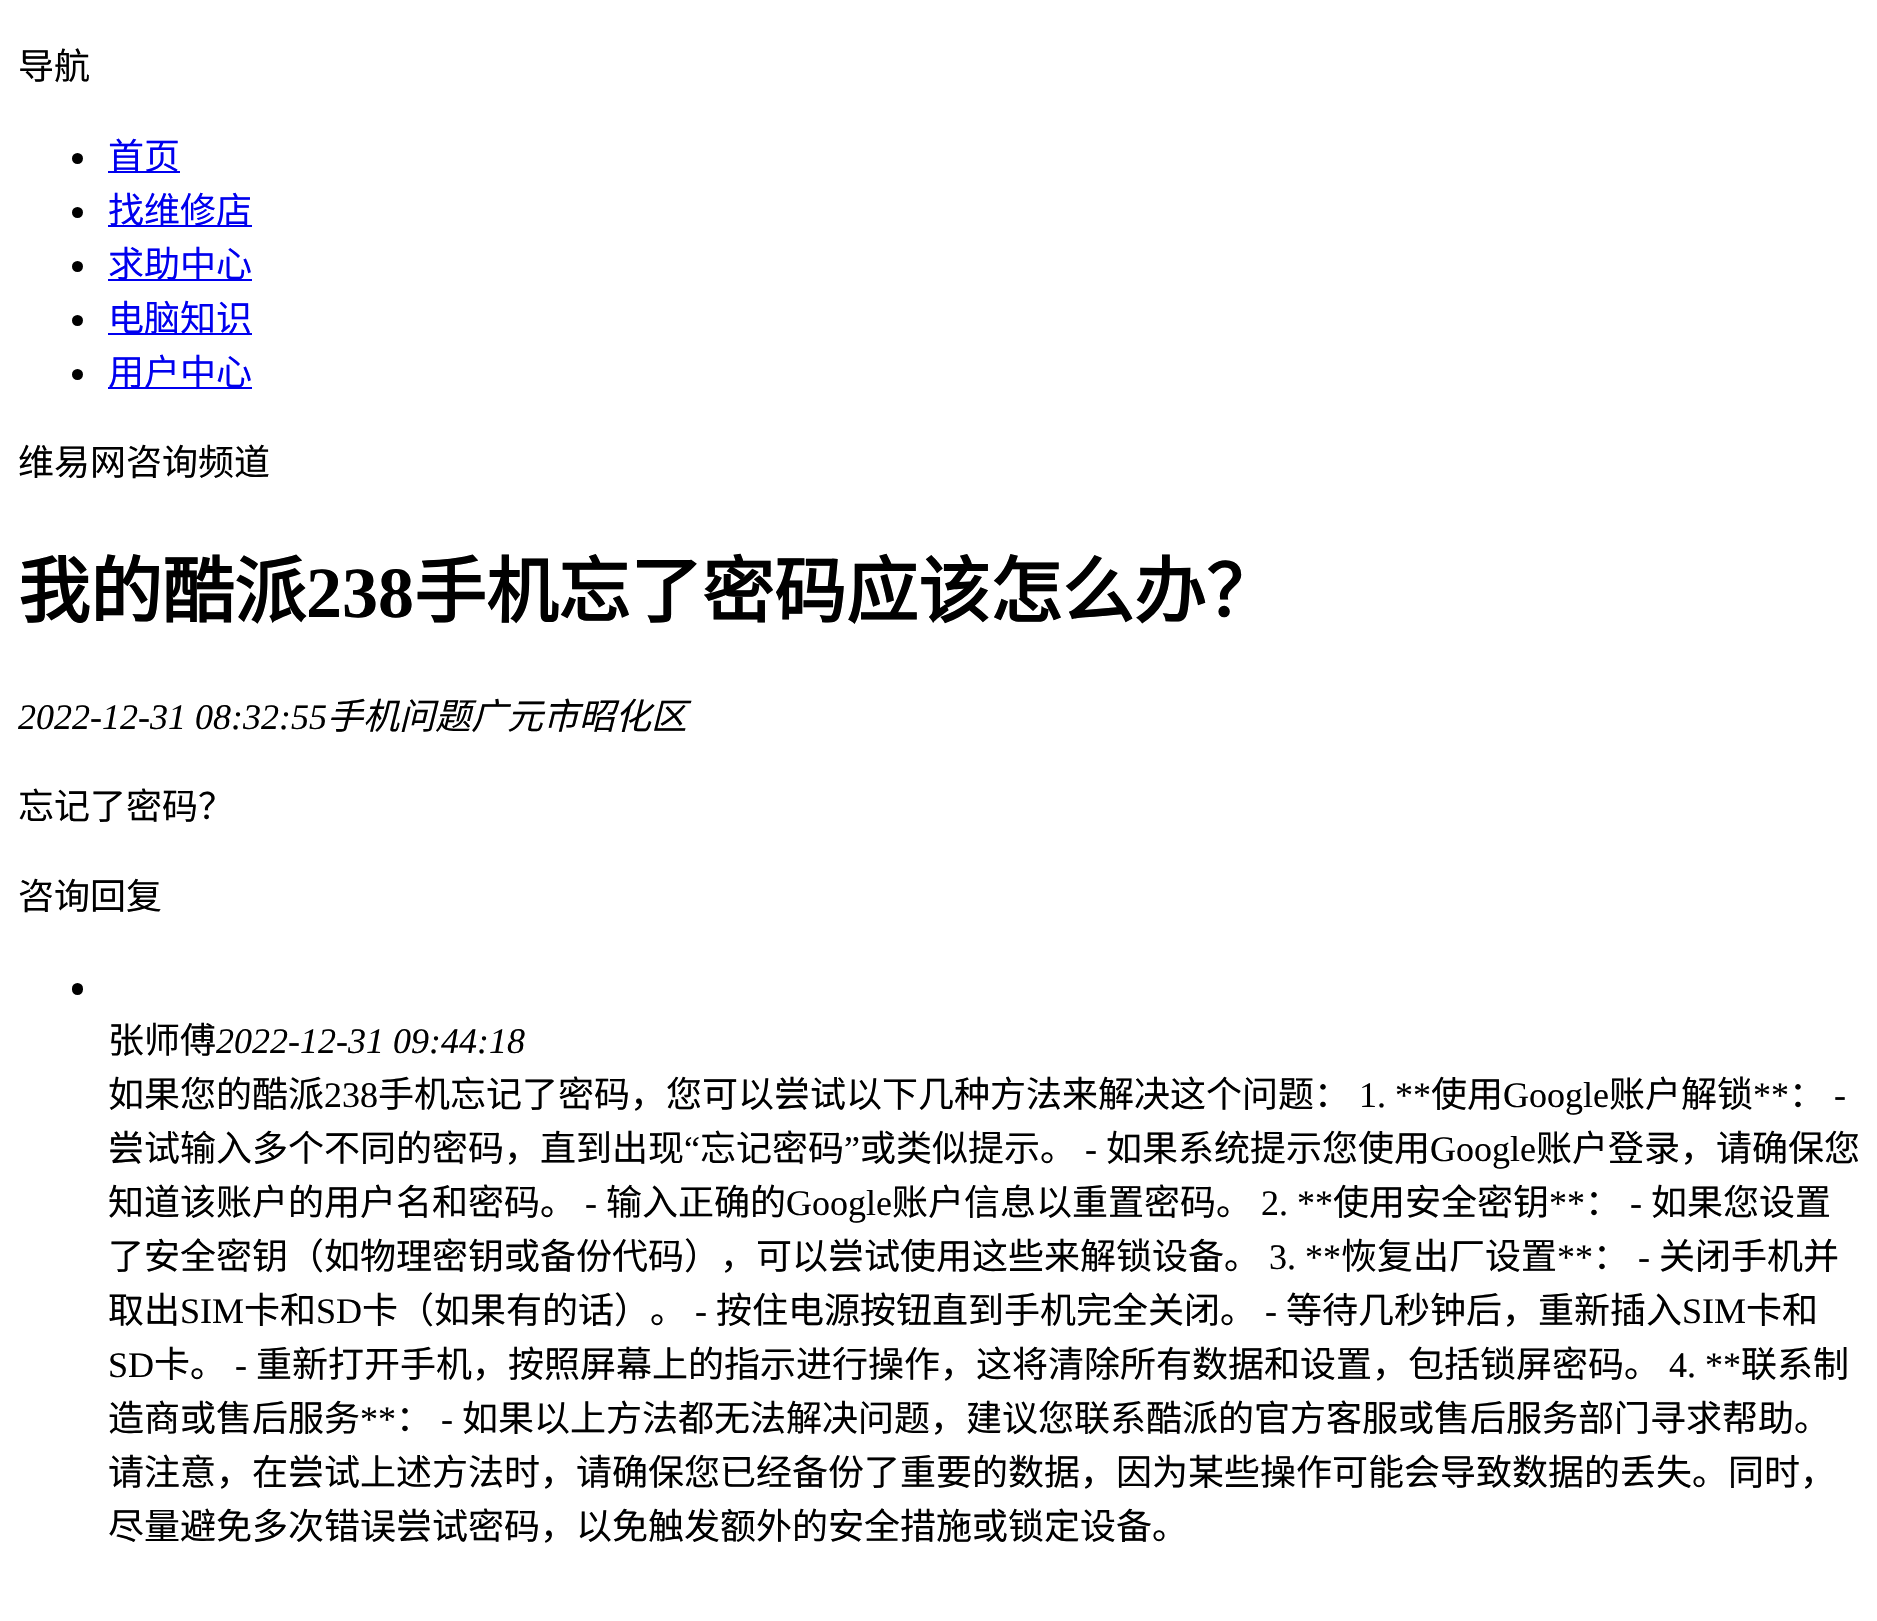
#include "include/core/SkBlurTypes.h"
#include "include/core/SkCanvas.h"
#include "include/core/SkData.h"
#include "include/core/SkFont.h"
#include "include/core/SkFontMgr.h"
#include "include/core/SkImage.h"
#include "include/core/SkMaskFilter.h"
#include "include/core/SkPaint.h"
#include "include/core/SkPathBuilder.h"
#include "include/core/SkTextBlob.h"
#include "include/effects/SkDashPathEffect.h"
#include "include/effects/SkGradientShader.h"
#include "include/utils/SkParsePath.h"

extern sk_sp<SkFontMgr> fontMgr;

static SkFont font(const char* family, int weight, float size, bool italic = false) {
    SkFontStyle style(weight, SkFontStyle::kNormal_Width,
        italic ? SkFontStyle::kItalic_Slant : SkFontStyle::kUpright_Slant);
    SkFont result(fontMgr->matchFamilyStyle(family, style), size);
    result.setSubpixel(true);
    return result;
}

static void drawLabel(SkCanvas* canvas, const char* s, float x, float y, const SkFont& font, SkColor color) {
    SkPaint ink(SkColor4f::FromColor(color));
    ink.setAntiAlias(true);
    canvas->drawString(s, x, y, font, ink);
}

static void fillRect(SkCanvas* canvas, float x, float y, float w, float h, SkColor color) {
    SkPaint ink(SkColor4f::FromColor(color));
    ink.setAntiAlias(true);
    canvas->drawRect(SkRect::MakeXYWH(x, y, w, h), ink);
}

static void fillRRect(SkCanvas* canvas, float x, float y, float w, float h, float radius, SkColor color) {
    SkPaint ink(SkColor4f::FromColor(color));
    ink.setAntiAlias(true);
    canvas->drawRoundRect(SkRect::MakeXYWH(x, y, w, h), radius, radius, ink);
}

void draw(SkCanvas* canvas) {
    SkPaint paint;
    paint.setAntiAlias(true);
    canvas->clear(0xFFFFFFFF);
    SkFont font1 = font("Noto Sans CJK SC", 400, 36);
    drawLabel(canvas, "导航", 18, 79, font1, 0xFF000000);
    paint.setColor(0xFF000000);
    canvas->drawCircle(77.5f, 158.5f, 5.5f, paint);
    fillRect(canvas, 108, 171, 72, 2, 0xFF0000EE);
    drawLabel(canvas, "首页", 108, 169, font1, 0xFF0000EE);
    canvas->drawCircle(77.5f, 212.5f, 5.5f, paint);
    fillRect(canvas, 108, 225, 144, 2, 0xFF0000EE);
    drawLabel(canvas, "找维修店", 108, 223, font1, 0xFF0000EE);
    canvas->drawCircle(77.5f, 266.5f, 5.5f, paint);
    fillRect(canvas, 108, 279, 144, 2, 0xFF0000EE);
    drawLabel(canvas, "求助中心", 108, 277, font1, 0xFF0000EE);
    canvas->drawCircle(77.5f, 320.5f, 5.5f, paint);
    fillRect(canvas, 108, 333, 144, 2, 0xFF0000EE);
    drawLabel(canvas, "电脑知识", 108, 331, font1, 0xFF0000EE);
    canvas->drawCircle(77.5f, 374.5f, 5.5f, paint);
    fillRect(canvas, 108, 387, 144, 2, 0xFF0000EE);
    drawLabel(canvas, "用户中心", 108, 385, font1, 0xFF0000EE);
    drawLabel(canvas, "维易网咨询频道", 18, 475, font1, 0xFF000000);
    SkFont font2 = font("Noto Sans CJK SC", 700, 72);
    drawLabel(canvas, "我的酷派", 18, 617, font2, 0xFF000000);
    SkFont font3 = font("Liberation Serif", 700, 72);
    drawLabel(canvas, "238", 306, 617, font3, 0xFF000000);
    drawLabel(canvas, "手机忘了密码应该怎么办？", 414, 617, font2, 0xFF000000);
    SkFont font4 = font("Liberation Serif", 400, 36, true);
    drawLabel(canvas, "2022-12-31 08:32:55", 18, 729, font4, 0xFF000000);
    SkFont font5 = font("Noto Sans CJK SC", 400, 36, true);
    drawLabel(canvas, "手机问题广元市昭化区", 327, 729, font5, 0xFF000000);
    drawLabel(canvas, "忘记了密码？", 18, 819, font1, 0xFF000000);
    drawLabel(canvas, "咨询回复", 18, 909, font1, 0xFF000000);
    fillRRect(canvas, 72, 983, 11, 12, 5.5f, 0xFF000000);
    drawLabel(canvas, "张师傅", 108, 1053, font1, 0xFF000000);
    drawLabel(canvas, "2022-12-31 09:44:18", 216, 1053, font4, 0xFF000000);
    drawLabel(canvas, "如果您的酷派", 108, 1107, font1, 0xFF000000);
    SkFont font6 = font("Liberation Serif", 400, 36);
    drawLabel(canvas, "238", 324, 1107, font6, 0xFF000000);
    drawLabel(canvas, "手机忘记了密码，您可以尝试以下几种方法来解决这个问题：", 378, 1107, font1, 0xFF000000);
    drawLabel(canvas, "1. **", 1359, 1107, font6, 0xFF000000);
    drawLabel(canvas, "使用", 1431, 1107, font1, 0xFF000000);
    drawLabel(canvas, "Google", 1503, 1107, font6, 0xFF000000);
    drawLabel(canvas, "账户解锁", 1609, 1107, font1, 0xFF000000);
    drawLabel(canvas, "**", 1753, 1107, font6, 0xFF000000);
    drawLabel(canvas, "：", 1789, 1107, font1, 0xFF000000);
    drawLabel(canvas, "-", 1834, 1107, font6, 0xFF000000);
    drawLabel(canvas, "尝试输入多个不同的密码，直到出现", 108, 1161, font1, 0xFF000000);
    drawLabel(canvas, "“", 684, 1161, font6, 0xFF000000);
    drawLabel(canvas, "忘记密码", 700, 1161, font1, 0xFF000000);
    drawLabel(canvas, "”", 844, 1161, font6, 0xFF000000);
    drawLabel(canvas, "或类似提示。", 860, 1161, font1, 0xFF000000);
    drawLabel(canvas, "如果系统提示您使用", 1106, 1161, font1, 0xFF000000);
    drawLabel(canvas, "Google", 1430, 1161, font6, 0xFF000000);
    drawLabel(canvas, "账户登录，请确保您", 1536, 1161, font1, 0xFF000000);
    drawLabel(canvas, "-", 1085, 1161, font6, 0xFF000000);
    drawLabel(canvas, "知道该账户的用户名和密码。", 108, 1215, font1, 0xFF000000);
    drawLabel(canvas, "-", 585, 1215, font6, 0xFF000000);
    drawLabel(canvas, "输入正确的", 606, 1215, font1, 0xFF000000);
    drawLabel(canvas, "Google", 786, 1215, font6, 0xFF000000);
    drawLabel(canvas, "账户信息以重置密码。", 892, 1215, font1, 0xFF000000);
    drawLabel(canvas, "2. **", 1261, 1215, font6, 0xFF000000);
    drawLabel(canvas, "使用安全密钥", 1333, 1215, font1, 0xFF000000);
    drawLabel(canvas, "**", 1549, 1215, font6, 0xFF000000);
    drawLabel(canvas, "：", 1585, 1215, font1, 0xFF000000);
    drawLabel(canvas, "-", 1630, 1215, font6, 0xFF000000);
    drawLabel(canvas, "如果您设置", 1651, 1215, font1, 0xFF000000);
    drawLabel(canvas, "了安全密钥（如物理密钥或备份代码），可以尝试使用这些来解锁设备。", 108, 1269, font1, 0xFF000000);
    drawLabel(canvas, "3. **", 1269, 1269, font6, 0xFF000000);
    drawLabel(canvas, "恢复出厂设置", 1341, 1269, font1, 0xFF000000);
    drawLabel(canvas, "**", 1557, 1269, font6, 0xFF000000);
    drawLabel(canvas, "：", 1593, 1269, font1, 0xFF000000);
    drawLabel(canvas, "-", 1638, 1269, font6, 0xFF000000);
    drawLabel(canvas, "关闭手机并", 1659, 1269, font1, 0xFF000000);
    drawLabel(canvas, "取出", 108, 1323, font1, 0xFF000000);
    drawLabel(canvas, "SIM", 180, 1323, font6, 0xFF000000);
    drawLabel(canvas, "卡和", 244, 1323, font1, 0xFF000000);
    drawLabel(canvas, "SD", 316, 1323, font6, 0xFF000000);
    drawLabel(canvas, "卡（如果有的话）。", 362, 1323, font1, 0xFF000000);
    drawLabel(canvas, "-", 695, 1323, font6, 0xFF000000);
    drawLabel(canvas, "按住电源按钮直到手机完全关闭。", 716, 1323, font1, 0xFF000000);
    drawLabel(canvas, "-", 1265, 1323, font6, 0xFF000000);
    drawLabel(canvas, "等待几秒钟后，重新插入", 1286, 1323, font1, 0xFF000000);
    drawLabel(canvas, "SIM", 1682, 1323, font6, 0xFF000000);
    drawLabel(canvas, "卡和", 1746, 1323, font1, 0xFF000000);
    drawLabel(canvas, "SD", 108, 1377, font6, 0xFF000000);
    drawLabel(canvas, "卡。", 154, 1377, font1, 0xFF000000);
    drawLabel(canvas, "-", 235, 1377, font6, 0xFF000000);
    drawLabel(canvas, "重新打开手机，按照屏幕上的指示进行操作，这将清除所有数据和设置，包括锁屏密码。", 256, 1377, font1, 0xFF000000);
    drawLabel(canvas, "4. **", 1669, 1377, font6, 0xFF000000);
    drawLabel(canvas, "联系制", 1741, 1377, font1, 0xFF000000);
    drawLabel(canvas, "造商或售后服务", 108, 1431, font1, 0xFF000000);
    drawLabel(canvas, "**", 360, 1431, font6, 0xFF000000);
    drawLabel(canvas, "：", 396, 1431, font1, 0xFF000000);
    drawLabel(canvas, "-", 441, 1431, font6, 0xFF000000);
    drawLabel(canvas, "如果以上方法都无法解决问题，建议您联系酷派的官方客服或售后服务部门寻求帮助。", 462, 1431, font1, 0xFF000000);
    drawLabel(canvas, "请注意，在尝试上述方法时，请确保您已经备份了重要的数据，因为某些操作可能会导致数据的丢失。同时，", 108, 1485, font1, 0xFF000000);
    drawLabel(canvas, "尽量避免多次错误尝试密码，以免触发额外的安全措施或锁定设备。", 108, 1539, font1, 0xFF000000);
}
